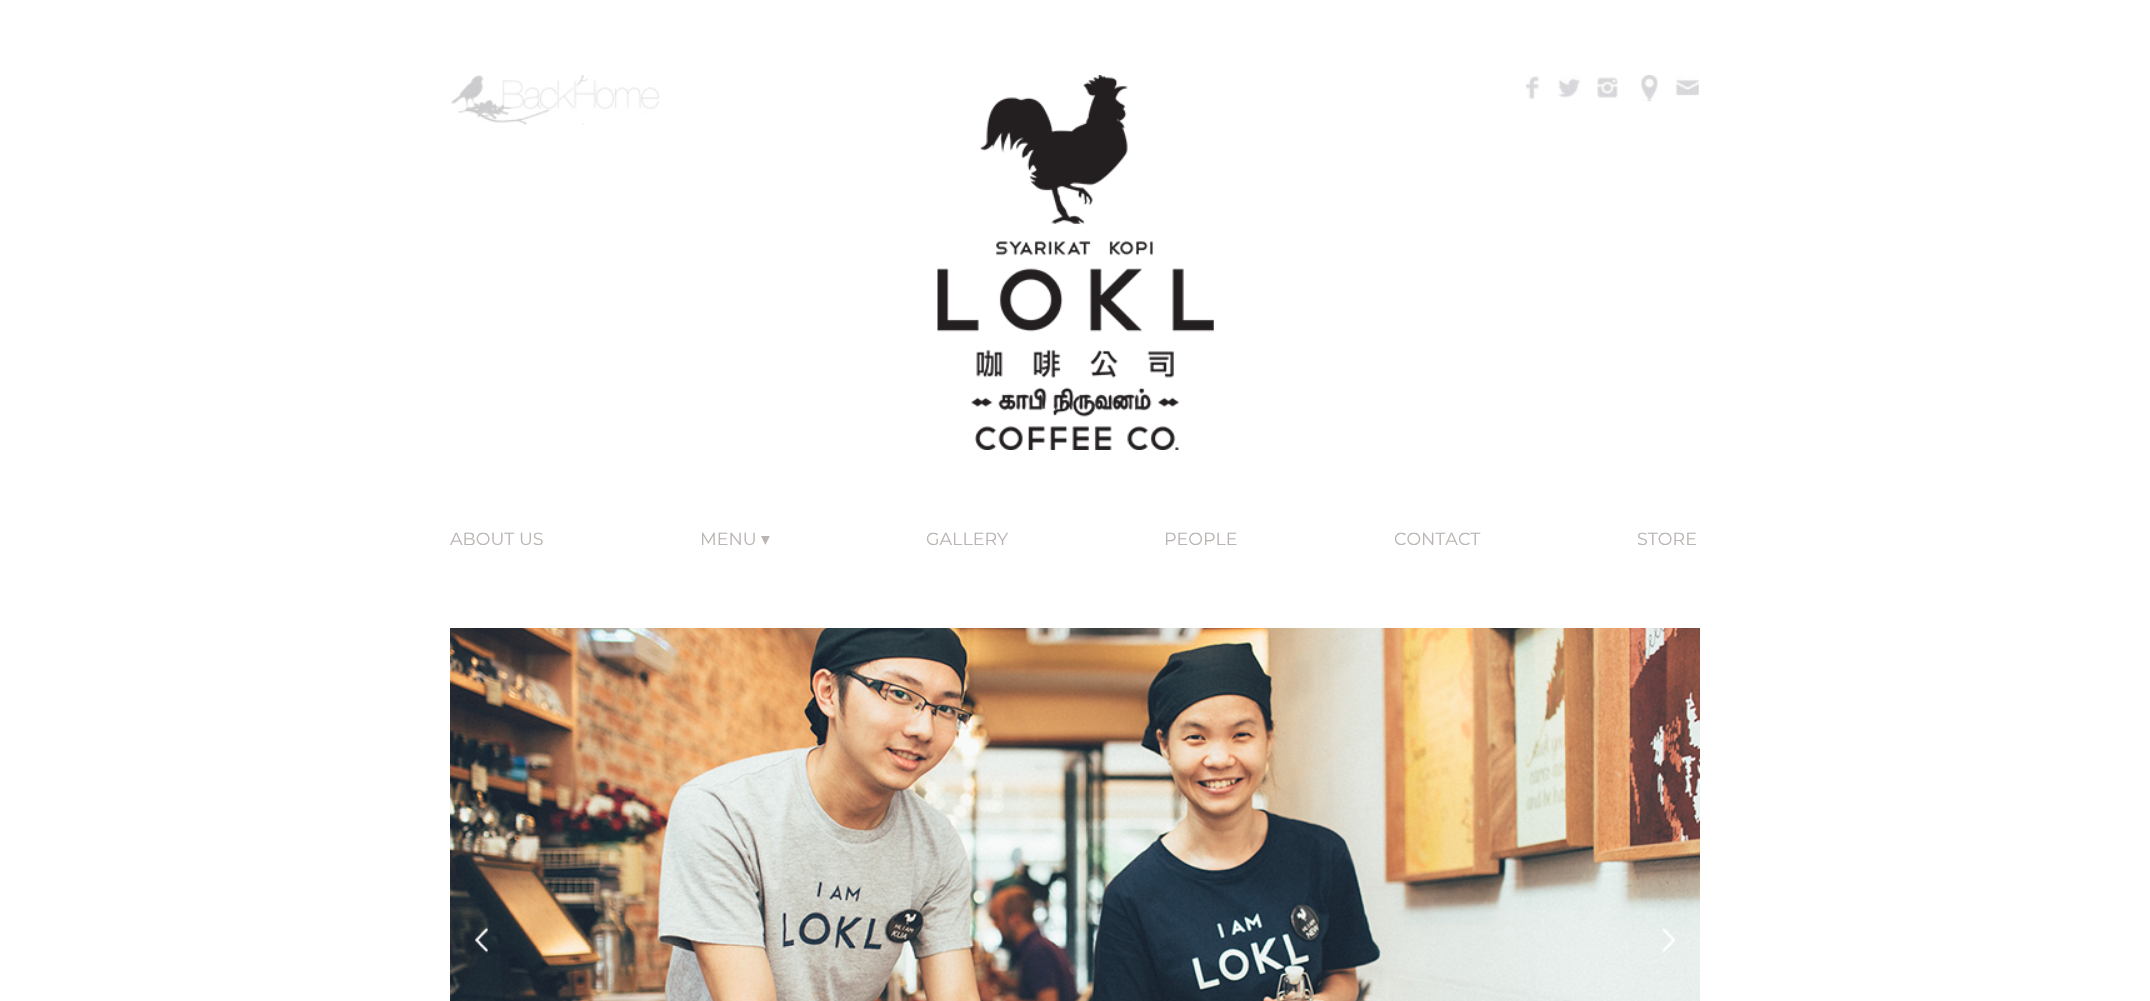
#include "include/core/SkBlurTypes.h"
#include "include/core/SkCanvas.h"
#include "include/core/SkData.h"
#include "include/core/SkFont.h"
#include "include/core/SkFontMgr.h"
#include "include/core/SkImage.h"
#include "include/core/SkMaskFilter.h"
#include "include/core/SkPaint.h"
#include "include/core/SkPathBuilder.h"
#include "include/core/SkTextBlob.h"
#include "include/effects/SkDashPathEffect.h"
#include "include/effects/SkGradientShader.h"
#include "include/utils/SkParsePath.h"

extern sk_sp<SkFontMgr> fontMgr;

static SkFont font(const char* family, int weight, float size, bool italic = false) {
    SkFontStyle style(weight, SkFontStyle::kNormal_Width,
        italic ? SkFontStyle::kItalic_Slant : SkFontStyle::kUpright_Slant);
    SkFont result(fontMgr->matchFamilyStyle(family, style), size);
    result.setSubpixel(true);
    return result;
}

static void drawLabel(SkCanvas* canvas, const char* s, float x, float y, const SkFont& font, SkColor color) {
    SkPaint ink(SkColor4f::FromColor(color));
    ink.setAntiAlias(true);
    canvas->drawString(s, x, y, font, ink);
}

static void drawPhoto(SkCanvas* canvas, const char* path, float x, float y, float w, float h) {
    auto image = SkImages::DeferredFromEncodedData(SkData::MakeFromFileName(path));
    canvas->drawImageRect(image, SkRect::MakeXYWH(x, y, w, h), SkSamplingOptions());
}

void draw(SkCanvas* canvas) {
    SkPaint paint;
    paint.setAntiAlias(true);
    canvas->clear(0xFFFFFFFF);
    drawPhoto(canvas, "assets/img1.png", 451, 75, 208, 50);
    drawPhoto(canvas, "assets/img2.png", 937, 75, 277, 375);
    drawPhoto(canvas, "assets/img3.png", 1526, 76, 13, 23);
    drawPhoto(canvas, "assets/img4.png", 1558, 75, 23, 23);
    drawPhoto(canvas, "assets/img5.png", 1597, 77, 21, 21);
    drawPhoto(canvas, "assets/img6.png", 1641, 75, 17, 27);
    drawPhoto(canvas, "assets/img7.png", 1675, 76, 24, 20);
    SkFont font1 = font("Montserrat", 400, 17.5f);
    drawLabel(canvas, "ABOUT US", 450, 545, font1, 0xFFBAB5B3);
    drawLabel(canvas, "MENU", 700, 545, font1, 0xFFBAB5B3);
    SkFont font2 = font("DejaVu Sans", 400, 17.5f);
    drawLabel(canvas, "▾", 761, 545, font2, 0xFFBAB5B3);
    drawLabel(canvas, "GALLERY", 926, 545, font1, 0xFFBAB5B3);
    drawLabel(canvas, "PEOPLE", 1164, 545, font1, 0xFFBAB5B3);
    drawLabel(canvas, "CONTACT", 1394, 545, font1, 0xFFBAB5B3);
    drawLabel(canvas, "STORE", 1637, 545, font1, 0xFFBAB5B3);
    drawPhoto(canvas, "assets/img8.png", 450, 628, 1250, 373);
    drawPhoto(canvas, "assets/img9.png", 475, 927, 13, 26);
    drawPhoto(canvas, "assets/img10.png", 1662, 928, 13, 24);
}
